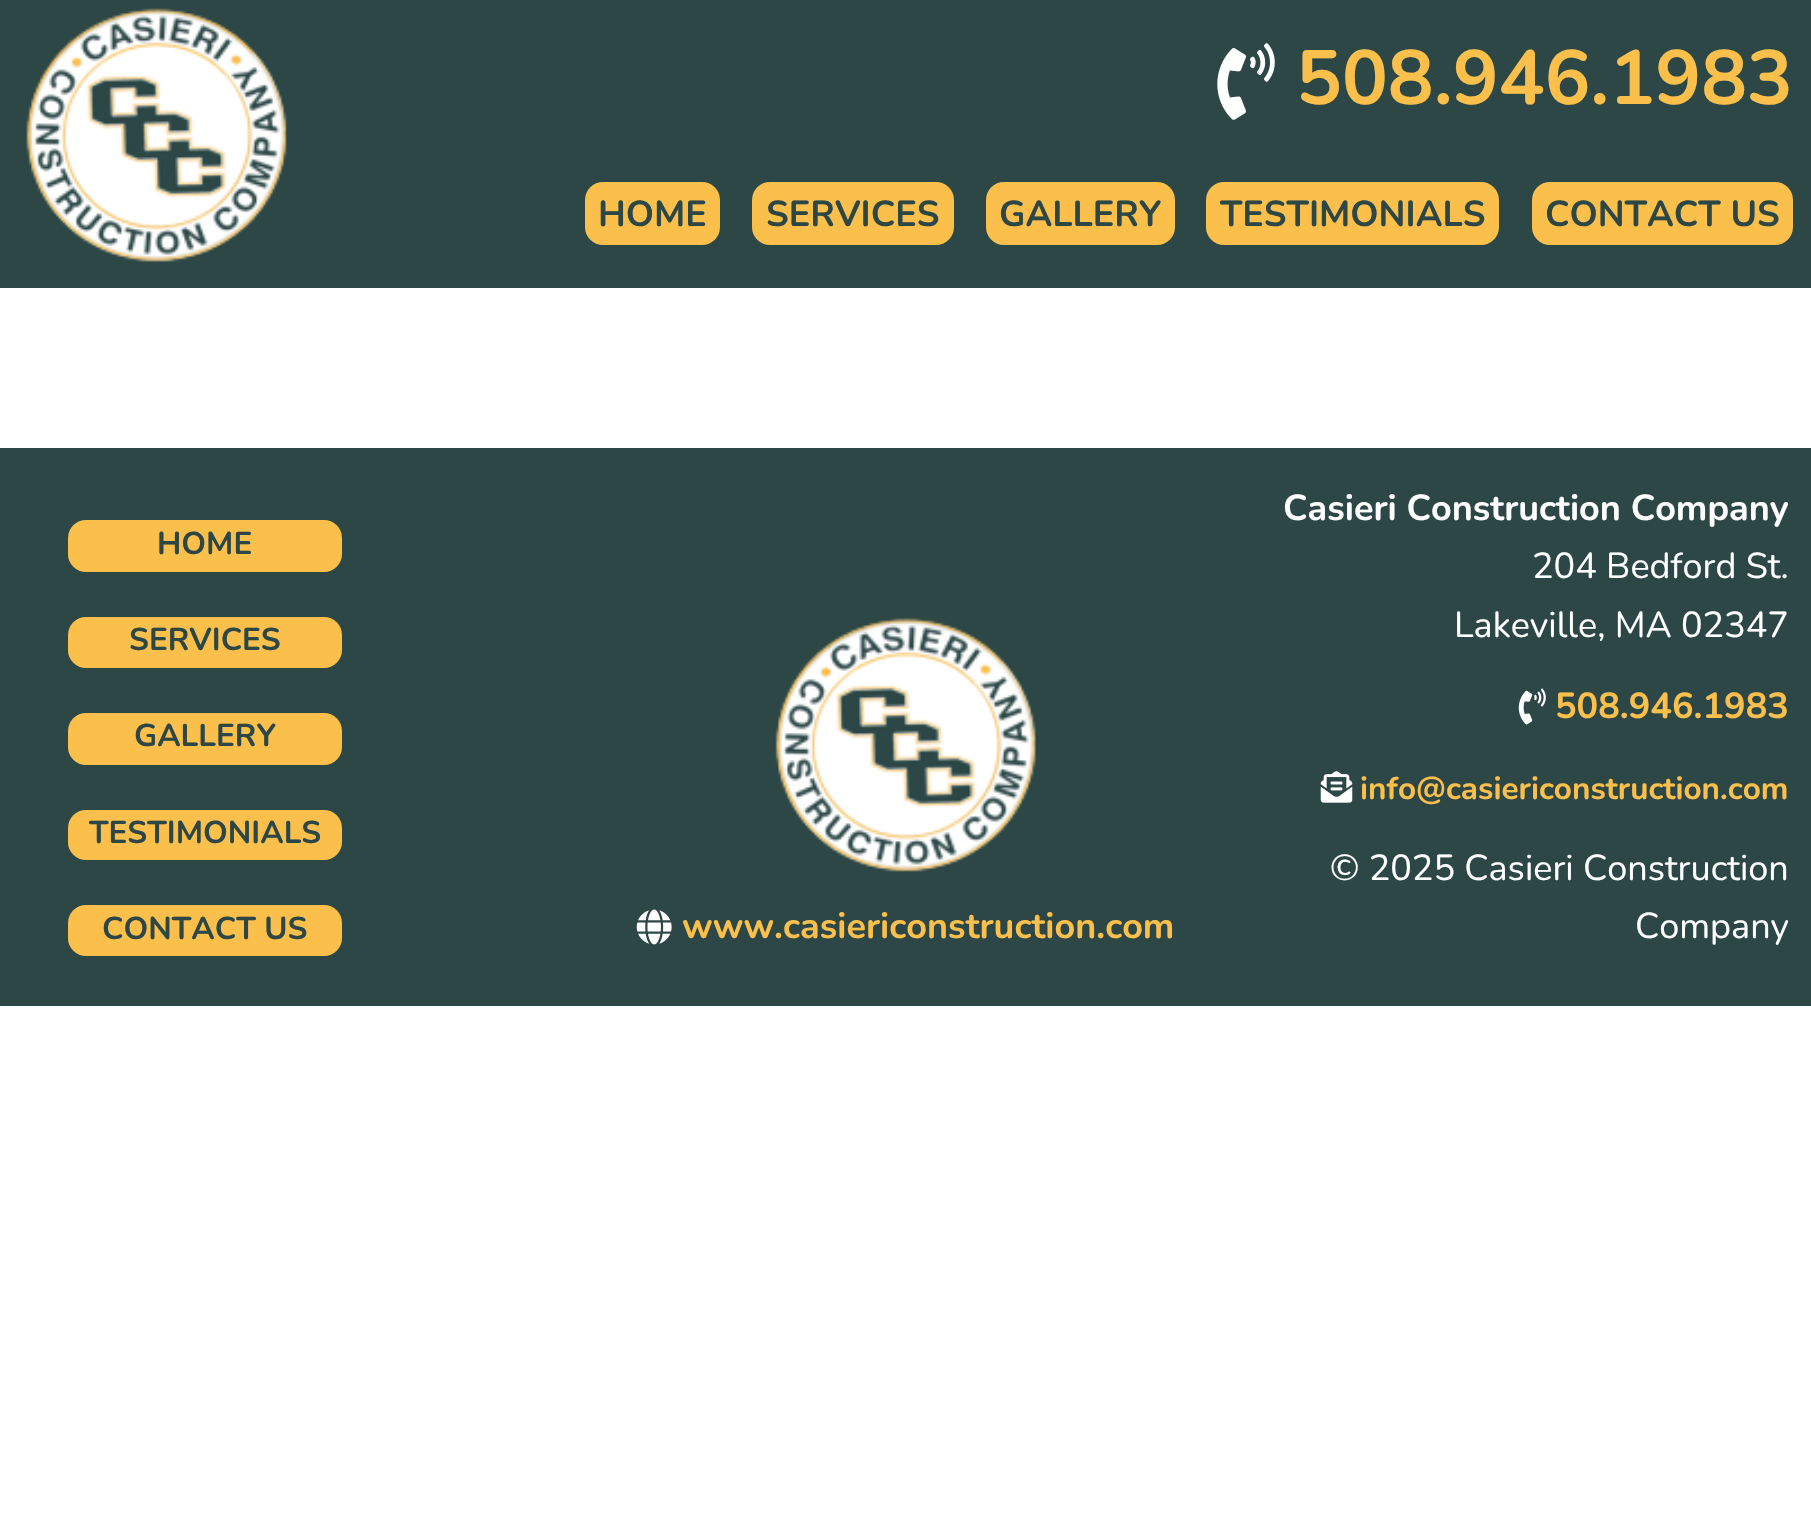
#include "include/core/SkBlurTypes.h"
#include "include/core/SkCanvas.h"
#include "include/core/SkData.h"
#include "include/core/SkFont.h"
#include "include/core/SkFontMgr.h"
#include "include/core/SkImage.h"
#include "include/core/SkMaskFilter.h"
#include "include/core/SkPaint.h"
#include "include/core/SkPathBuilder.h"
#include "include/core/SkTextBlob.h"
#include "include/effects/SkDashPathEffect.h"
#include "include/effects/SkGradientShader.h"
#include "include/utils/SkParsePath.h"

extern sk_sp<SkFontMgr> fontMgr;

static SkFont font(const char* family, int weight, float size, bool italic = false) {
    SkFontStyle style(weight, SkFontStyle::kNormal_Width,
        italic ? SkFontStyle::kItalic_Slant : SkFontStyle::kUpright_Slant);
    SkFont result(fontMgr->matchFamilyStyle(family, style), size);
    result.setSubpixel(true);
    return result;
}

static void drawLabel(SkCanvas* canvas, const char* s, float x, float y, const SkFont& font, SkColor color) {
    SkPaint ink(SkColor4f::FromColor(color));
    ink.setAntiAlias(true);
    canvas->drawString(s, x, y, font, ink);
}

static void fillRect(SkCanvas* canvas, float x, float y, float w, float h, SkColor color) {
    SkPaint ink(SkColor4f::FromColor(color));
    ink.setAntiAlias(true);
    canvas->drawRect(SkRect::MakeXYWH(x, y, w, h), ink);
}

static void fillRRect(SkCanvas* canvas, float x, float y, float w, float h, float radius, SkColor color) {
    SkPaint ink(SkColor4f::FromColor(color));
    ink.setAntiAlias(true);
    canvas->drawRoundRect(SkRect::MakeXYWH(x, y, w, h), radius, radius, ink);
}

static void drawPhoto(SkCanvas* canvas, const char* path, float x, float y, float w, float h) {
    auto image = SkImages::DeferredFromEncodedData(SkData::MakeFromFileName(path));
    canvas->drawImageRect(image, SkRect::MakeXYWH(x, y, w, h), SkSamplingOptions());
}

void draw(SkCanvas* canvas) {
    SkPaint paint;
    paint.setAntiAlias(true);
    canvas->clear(0xFFFFFFFF);
    fillRect(canvas, 0, 0, 1811, 288, 0xFF2C4746);
    drawPhoto(canvas, "assets/img1.png", 26, 8, 261, 254);
    drawPhoto(canvas, "assets/img2.png", 1217, 43, 58, 77);
    SkFont font1 = font("Nunito", 700, 76.5f);
    drawLabel(canvas, "508.946.1983", 1296, 104, font1, 0xFFFBC04B);
    fillRRect(canvas, 585, 182, 135, 63, 18, 0xFFFBC04B);
    SkFont font2 = font("Nunito", 700, 36);
    drawLabel(canvas, "HOME", 598, 226, font2, 0xFF2C4746);
    fillRRect(canvas, 752, 182, 202, 63, 18, 0xFFFBC04B);
    drawLabel(canvas, "SERVICES", 766, 226, font2, 0xFF2C4746);
    fillRRect(canvas, 986, 182, 189, 63, 18, 0xFFFBC04B);
    drawLabel(canvas, "GALLERY", 999, 226, font2, 0xFF2C4746);
    fillRRect(canvas, 1206, 182, 293, 63, 18, 0xFFFBC04B);
    drawLabel(canvas, "TESTIMONIALS", 1220, 226, font2, 0xFF2C4746);
    fillRRect(canvas, 1532, 182, 261, 63, 18, 0xFFFBC04B);
    drawLabel(canvas, "CONTACT US", 1545, 226, font2, 0xFF2C4746);
    fillRect(canvas, 0, 448, 1811, 558, 0xFF2C4746);
    fillRRect(canvas, 68, 520, 274, 52, 18, 0xFFFBC04B);
    SkFont font3 = font("Nunito", 700, 31.5f);
    drawLabel(canvas, "HOME", 157, 554, font3, 0xFF2C4746);
    fillRRect(canvas, 68, 617, 274, 51, 18, 0xFFFBC04B);
    drawLabel(canvas, "SERVICES", 129, 650, font3, 0xFF2C4746);
    fillRRect(canvas, 68, 713, 274, 52, 18, 0xFFFBC04B);
    drawLabel(canvas, "GALLERY", 134, 746, font3, 0xFF2C4746);
    fillRRect(canvas, 68, 810, 274, 50, 18, 0xFFFBC04B);
    drawLabel(canvas, "TESTIMONIALS", 89, 843, font3, 0xFF2C4746);
    fillRRect(canvas, 68, 905, 274, 51, 18, 0xFFFBC04B);
    drawLabel(canvas, "CONTACT US", 102, 939, font3, 0xFF2C4746);
    drawPhoto(canvas, "assets/img3.png", 775, 618, 261, 254);
    drawPhoto(canvas, "assets/img4.png", 636, 909, 36, 36);
    drawLabel(canvas, "www.casiericonstruction.com", 682, 938, font2, 0xFFFBC04B);
    drawLabel(canvas, "Casieri Construction Company", 1283, 520, font2, 0xFFFFFFFF);
    SkFont font4 = font("Nunito", 400, 36);
    drawLabel(canvas, "204 Bedford St.", 1532, 578, font4, 0xFFFFFFFF);
    drawLabel(canvas, "Lakeville, MA 02347", 1454, 637, font4, 0xFFFFFFFF);
    drawPhoto(canvas, "assets/img5.png", 1518, 688, 28, 37);
    drawLabel(canvas, "508.946.1983", 1555, 718, font2, 0xFFFBC04B);
    drawPhoto(canvas, "assets/img6.png", 1320, 771, 33, 32);
    drawLabel(canvas, "info@casiericonstruction.com", 1360, 799, font3, 0xFFFBC04B);
    drawLabel(canvas, "© 2025 Casieri Construction", 1330, 880, font4, 0xFFFFFFFF);
    drawLabel(canvas, "Company", 1635, 938, font4, 0xFFFFFFFF);
}
